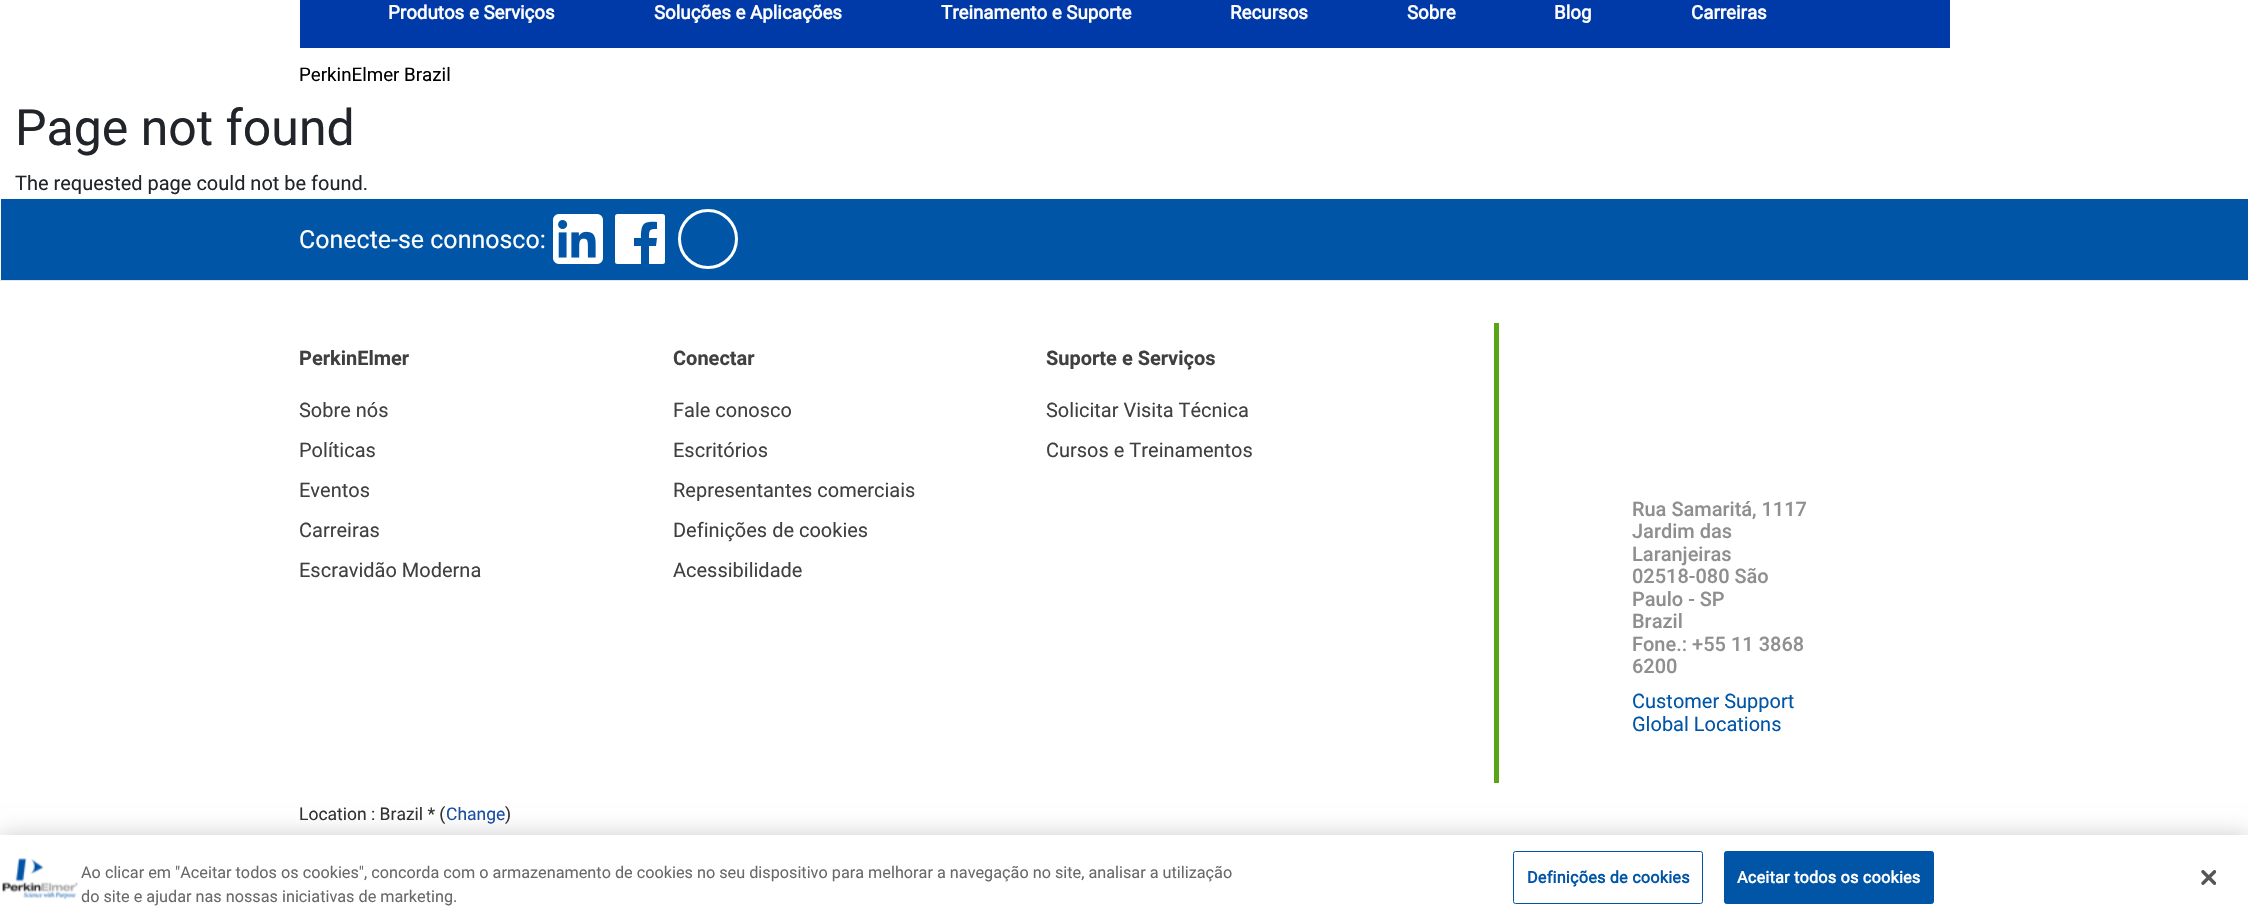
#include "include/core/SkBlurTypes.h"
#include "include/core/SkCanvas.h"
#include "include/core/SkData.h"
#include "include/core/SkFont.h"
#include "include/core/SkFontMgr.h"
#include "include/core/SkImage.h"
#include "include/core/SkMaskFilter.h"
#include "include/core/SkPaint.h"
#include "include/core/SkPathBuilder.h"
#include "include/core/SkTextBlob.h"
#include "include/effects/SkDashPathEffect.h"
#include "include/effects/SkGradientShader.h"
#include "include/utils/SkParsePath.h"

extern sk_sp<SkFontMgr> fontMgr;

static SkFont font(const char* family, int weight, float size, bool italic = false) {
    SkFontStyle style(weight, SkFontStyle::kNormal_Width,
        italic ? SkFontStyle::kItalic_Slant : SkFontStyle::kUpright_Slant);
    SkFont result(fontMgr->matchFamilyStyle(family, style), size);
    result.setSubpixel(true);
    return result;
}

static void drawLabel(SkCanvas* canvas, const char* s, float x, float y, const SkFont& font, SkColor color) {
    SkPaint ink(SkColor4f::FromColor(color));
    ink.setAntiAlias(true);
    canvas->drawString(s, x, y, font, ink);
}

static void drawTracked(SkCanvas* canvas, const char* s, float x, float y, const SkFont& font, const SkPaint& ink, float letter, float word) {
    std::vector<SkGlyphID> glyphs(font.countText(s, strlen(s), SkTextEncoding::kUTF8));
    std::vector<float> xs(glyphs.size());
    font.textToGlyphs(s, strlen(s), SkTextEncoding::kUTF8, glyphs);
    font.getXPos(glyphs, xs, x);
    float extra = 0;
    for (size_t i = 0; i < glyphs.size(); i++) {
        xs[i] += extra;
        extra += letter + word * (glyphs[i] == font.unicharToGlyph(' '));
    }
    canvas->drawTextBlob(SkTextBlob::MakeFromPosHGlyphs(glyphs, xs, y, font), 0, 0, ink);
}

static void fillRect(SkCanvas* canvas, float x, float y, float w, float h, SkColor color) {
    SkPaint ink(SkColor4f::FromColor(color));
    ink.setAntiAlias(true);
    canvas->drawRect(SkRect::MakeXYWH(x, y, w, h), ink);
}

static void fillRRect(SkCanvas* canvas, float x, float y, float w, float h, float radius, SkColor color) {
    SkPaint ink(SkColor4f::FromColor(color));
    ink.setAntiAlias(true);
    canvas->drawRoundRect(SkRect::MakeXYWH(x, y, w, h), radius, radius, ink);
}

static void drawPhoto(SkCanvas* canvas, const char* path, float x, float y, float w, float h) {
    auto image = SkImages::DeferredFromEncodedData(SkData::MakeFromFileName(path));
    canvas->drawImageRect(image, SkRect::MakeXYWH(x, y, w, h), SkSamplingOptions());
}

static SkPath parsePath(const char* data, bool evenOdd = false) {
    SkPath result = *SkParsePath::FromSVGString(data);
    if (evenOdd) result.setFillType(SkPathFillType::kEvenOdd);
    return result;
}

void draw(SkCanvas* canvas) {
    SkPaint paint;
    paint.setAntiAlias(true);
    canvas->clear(0xFFFFFFFF);
    fillRect(canvas, 300, 0, 1650, 48, 0xFF003AA8);
    SkFont font1 = font("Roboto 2", 700, 18.75f);
    drawLabel(canvas, "Produtos e Serviços", 388, 19, font1, 0xFFFFFFFF);
    drawLabel(canvas, "Soluções e Aplicações", 654, 19, font1, 0xFFFFFFFF);
    drawLabel(canvas, "Treinamento e Suporte", 941, 19, font1, 0xFFFFFFFF);
    drawLabel(canvas, "Recursos", 1230, 19, font1, 0xFFFFFFFF);
    drawLabel(canvas, "Sobre", 1407, 19, font1, 0xFFFFFFFF);
    drawLabel(canvas, "Blog", 1554, 19, font1, 0xFFFFFFFF);
    drawLabel(canvas, "Carreiras", 1691, 19, font1, 0xFFFFFFFF);
    SkFont font2 = font("Roboto", 400, 18.75f);
    drawLabel(canvas, "PerkinElmer Brazil", 299, 81, font2, 0xFF000000);
    SkFont font3 = font("Roboto", 400, 50);
    drawLabel(canvas, "Page not found", 15, 145, font3, 0xFF212529);
    SkFont font4 = font("Roboto", 400, 20);
    drawLabel(canvas, "The requested page could not be found.", 15, 190, font4, 0xFF212529);
    fillRect(canvas, 1, 199, 2247, 81, 0xFF0055A6);
    SkFont font5 = font("Roboto", 400, 25);
    drawLabel(canvas, "Conecte-se connosco:", 299, 248, font5, 0xFFFFFFFF);
    drawPhoto(canvas, "assets/img1.png", 553, 214, 50, 50);
    fillRRect(canvas, 615, 214, 50, 50, 2.5f, 0xFFFFFFFF);
    paint.setColor(0xFF0055A6);
    canvas->drawPath(parsePath("M656 246H649V264H641V246H634V238H641C641 224 643 221 657 222V229C649 229 649 230 649 238H657Z"), paint);
    paint.setStroke(true);
    paint.setStrokeWidth(3);
    paint.setColor(0xFFFFFFFF);
    canvas->drawCircle(708, 239, 28.5f, paint);
    fillRect(canvas, 0, 280, 2248, 1, 0xFFE5E5E5);
    SkFont font6 = font("Roboto", 700, 20);
    drawLabel(canvas, "PerkinElmer", 299, 365, font6, 0xFF404040);
    drawLabel(canvas, "Sobre nós", 299, 417, font4, 0xFF404040);
    drawLabel(canvas, "Políticas", 299, 457, font4, 0xFF404040);
    drawLabel(canvas, "Eventos", 299, 497, font4, 0xFF404040);
    drawLabel(canvas, "Carreiras", 299, 537, font4, 0xFF404040);
    drawLabel(canvas, "Escravidão Moderna", 299, 577, font4, 0xFF404040);
    drawLabel(canvas, "Conectar", 673, 365, font6, 0xFF404040);
    drawLabel(canvas, "Fale conosco", 673, 417, font4, 0xFF404040);
    drawLabel(canvas, "Escritórios", 673, 457, font4, 0xFF404040);
    drawLabel(canvas, "Representantes comerciais", 673, 497, font4, 0xFF404040);
    drawLabel(canvas, "Definições de cookies", 673, 537, font4, 0xFF404040);
    drawLabel(canvas, "Acessibilidade", 673, 577, font4, 0xFF404040);
    drawLabel(canvas, "Suporte e Serviços", 1046, 365, font6, 0xFF404040);
    drawLabel(canvas, "Solicitar Visita Técnica", 1046, 417, font4, 0xFF404040);
    drawLabel(canvas, "Cursos e Treinamentos", 1046, 457, font4, 0xFF404040);
    fillRect(canvas, 1494, 323, 5, 460, 0xFF58A618);
    SkFont font7 = font("Roboto", 500, 20);
    drawLabel(canvas, "Rua Samaritá, 1117", 1632, 516, font7, 0xFF8F8F8F);
    drawLabel(canvas, "Jardim das", 1632, 538, font7, 0xFF8F8F8F);
    drawLabel(canvas, "Laranjeiras", 1632, 561, font7, 0xFF8F8F8F);
    drawLabel(canvas, "02518-080 São", 1632, 583, font7, 0xFF8F8F8F);
    drawLabel(canvas, "Paulo - SP", 1632, 606, font7, 0xFF8F8F8F);
    drawLabel(canvas, "Brazil", 1632, 628, font7, 0xFF8F8F8F);
    drawLabel(canvas, "Fone.: +55 11 3868", 1632, 651, font7, 0xFF8F8F8F);
    drawLabel(canvas, "6200", 1632, 673, font7, 0xFF8F8F8F);
    drawLabel(canvas, "Customer Support", 1632, 708, font4, 0xFF0055A6);
    drawLabel(canvas, "Global Locations", 1632, 731, font4, 0xFF0055A6);
    SkFont font8 = font("Roboto", 400, 17.5f);
    drawLabel(canvas, "Location : Brazil * (", 299, 820, font8, 0xFF333333);
    drawLabel(canvas, "Change", 446, 820, font8, 0xFF1B4EA4);
    drawLabel(canvas, ")", 505, 820, font8, 0xFF333333);
    paint.setStroke(false);
    paint.setColor(0x33000000);
    paint.setMaskFilter(SkMaskFilter::MakeBlur(kNormal_SkBlurStyle, 11));
    canvas->drawRect(SkRect::MakeXYWH(0, 835, 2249, 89), paint);
    paint.setMaskFilter(nullptr);
    fillRect(canvas, 0, 835, 2248, 88, 0xFFFFFFFF);
    drawPhoto(canvas, "assets/img2.png", 2, 858, 76, 42);
    SkFont font9 = font("Roboto", 400, 16.25f);
    drawLabel(canvas, "Ao clicar em \"Aceitar todos os cookies\", concorda com o armazenamento de cookies no seu dispositivo para melhorar a navegação no site, analisar a utilização", 81, 878, font9, 0xFF696969);
    drawLabel(canvas, "do site e ajudar nas nossas iniciativas de marketing.", 81, 902, font9, 0xFF696969);
    paint.setStroke(true);
    paint.setStrokeWidth(1);
    paint.setColor(0xFF0055A6);
    canvas->drawRoundRect(SkRect::MakeXYWH(1513.5f, 851.5f, 189, 52), 2, 2, paint);
    SkFont font10 = font("Roboto 2", 700, 16.25f);
    paint.setStroke(false);
    drawTracked(canvas, "Definições de cookies", 1527, 883, font10, paint, 0.2f, 0);
    canvas->drawRoundRect(SkRect::MakeXYWH(1724.5f, 851.5f, 209, 52), 2, 2, paint);
    paint.setStroke(true);
    canvas->drawRoundRect(SkRect::MakeXYWH(1724.5f, 851.5f, 209, 52), 2, 2, paint);
    paint.setStroke(false);
    paint.setColor(0xFFFFFFFF);
    drawTracked(canvas, "Aceitar todos os cookies", 1737, 883, font10, paint, 0.2f, 0);
    drawPhoto(canvas, "assets/img3.png", 2201, 870, 15, 15);
}
